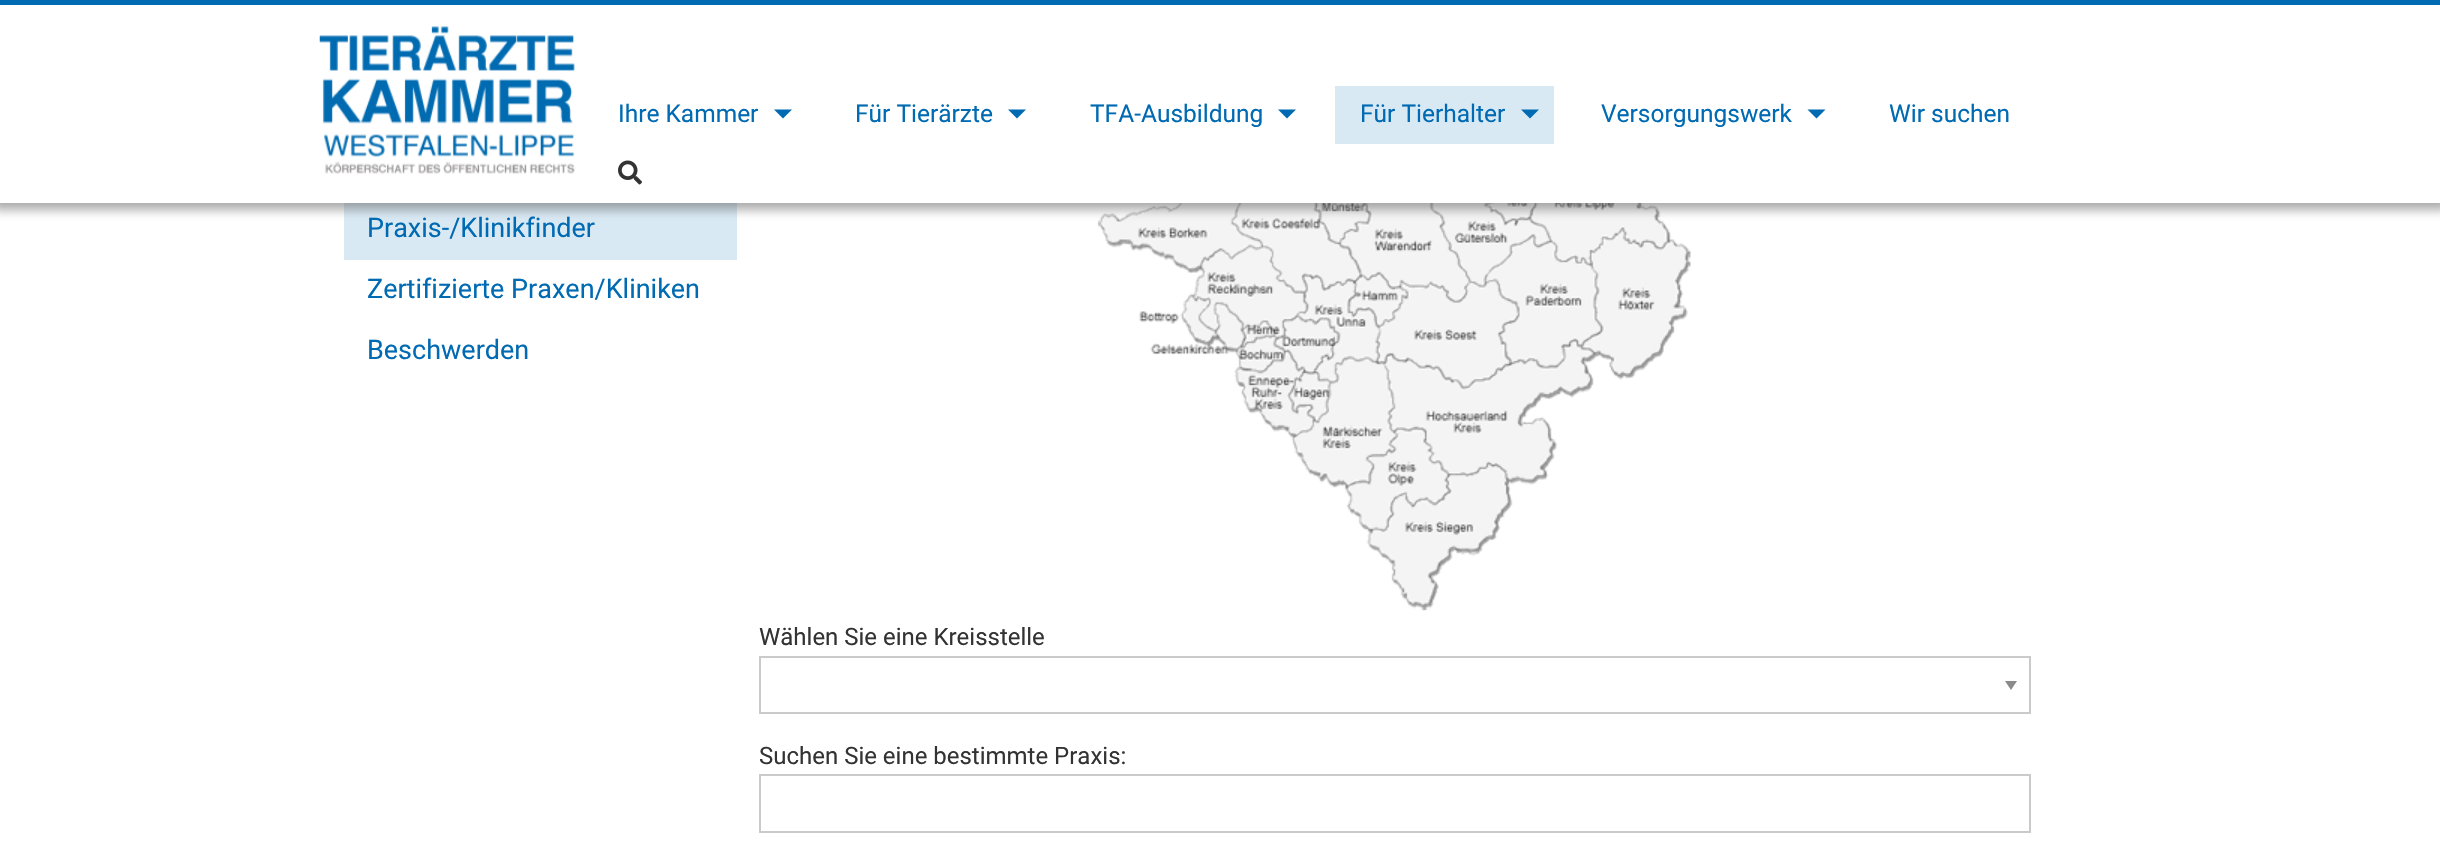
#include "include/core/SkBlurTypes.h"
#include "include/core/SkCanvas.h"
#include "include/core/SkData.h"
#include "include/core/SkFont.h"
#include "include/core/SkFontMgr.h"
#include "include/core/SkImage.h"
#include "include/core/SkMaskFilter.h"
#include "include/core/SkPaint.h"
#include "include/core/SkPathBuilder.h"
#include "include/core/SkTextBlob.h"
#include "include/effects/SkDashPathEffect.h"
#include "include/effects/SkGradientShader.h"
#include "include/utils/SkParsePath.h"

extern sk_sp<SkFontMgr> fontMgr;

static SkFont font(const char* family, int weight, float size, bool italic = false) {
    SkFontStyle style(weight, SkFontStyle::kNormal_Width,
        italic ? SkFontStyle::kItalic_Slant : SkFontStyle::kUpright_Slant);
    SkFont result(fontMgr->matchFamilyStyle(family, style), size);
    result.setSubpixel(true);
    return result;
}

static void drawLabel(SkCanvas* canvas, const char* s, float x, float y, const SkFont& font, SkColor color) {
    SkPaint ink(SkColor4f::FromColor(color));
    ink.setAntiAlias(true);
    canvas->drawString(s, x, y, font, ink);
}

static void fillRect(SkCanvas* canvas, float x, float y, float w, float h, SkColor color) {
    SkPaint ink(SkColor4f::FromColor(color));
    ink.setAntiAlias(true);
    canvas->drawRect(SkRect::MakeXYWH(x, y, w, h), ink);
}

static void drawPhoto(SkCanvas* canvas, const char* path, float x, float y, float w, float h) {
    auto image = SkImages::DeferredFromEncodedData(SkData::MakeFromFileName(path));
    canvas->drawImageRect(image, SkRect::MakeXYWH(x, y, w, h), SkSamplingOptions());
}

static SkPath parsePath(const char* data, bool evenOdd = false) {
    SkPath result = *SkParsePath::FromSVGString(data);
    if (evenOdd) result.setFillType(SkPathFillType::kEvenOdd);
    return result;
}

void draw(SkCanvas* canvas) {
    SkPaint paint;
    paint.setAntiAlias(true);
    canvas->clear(0xFFFFFFFF);
    fillRect(canvas, 344, 203, 393, 57, 0xFFD9E9F4);
    drawPhoto(canvas, "assets/img3.png", 1097, 203, 594, 408);
    paint.setColor(0x80555555);
    paint.setMaskFilter(SkMaskFilter::MakeBlur(kNormal_SkBlurStyle, 5));
    canvas->drawRect(SkRect::MakeXYWH(-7, -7, 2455, 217), paint);
    paint.setMaskFilter(nullptr);
    fillRect(canvas, 0, 5, 2440, 198, 0xFFFFFFFF);
    fillRect(canvas, 0, 0, 2440, 5, 0xFF006AB2);
    drawPhoto(canvas, "assets/img1.png", 319, 26, 256, 148);
    SkFont font1 = font("Roboto", 400, 24.5f);
    drawLabel(canvas, "Ihre Kammer", 618, 122, font1, 0xFF006AB2);
    paint.setColor(0xFF006AB2);
    canvas->drawPath(parsePath("M774 109.5H792L783 118.5Z"), paint);
    drawLabel(canvas, "Für Tierärzte", 855, 122, font1, 0xFF006AB2);
    canvas->drawPath(parsePath("M1008 109.5H1026L1017 118.5Z"), paint);
    drawLabel(canvas, "TFA-Ausbildung", 1090, 122, font1, 0xFF006AB2);
    canvas->drawPath(parsePath("M1278 109.5H1296L1287 118.5Z"), paint);
    fillRect(canvas, 1335, 86, 219, 58, 0xFFD9E9F4);
    drawLabel(canvas, "Für Tierhalter", 1360, 122, font1, 0xFF006AB2);
    canvas->drawPath(parsePath("M1521 109.5H1539L1530 118.5Z"), paint);
    drawLabel(canvas, "Versorgungswerk", 1601, 122, font1, 0xFF006AB2);
    canvas->drawPath(parsePath("M1807.5 109.5H1825.5L1816.5 118.5Z"), paint);
    drawLabel(canvas, "Wir suchen", 1889, 122, font1, 0xFF006AB2);
    drawPhoto(canvas, "assets/img2.png", 618, 160, 24, 25);
    SkFont font2 = font("Roboto", 400, 27);
    drawLabel(canvas, "Praxis-/Klinikfinder", 367, 237, font2, 0xFF006AB2);
    drawLabel(canvas, "Zertifizierte Praxen/Kliniken", 367, 298, font2, 0xFF006AB2);
    drawLabel(canvas, "Beschwerden", 367, 359, font2, 0xFF006AB2);
    SkFont font3 = font("Roboto", 400, 24);
    drawLabel(canvas, "Wählen Sie eine Kreisstelle", 759, 645, font3, 0xFF333333);
    paint.setColor(0xFF8A8A8A);
    canvas->drawPath(parsePath("M2005 681H2017L2011 690Z"), paint);
    paint.setStroke(true);
    paint.setStrokeWidth(2);
    paint.setColor(0xFFCACACA);
    canvas->drawRect(SkRect::MakeXYWH(760, 657, 1270, 56), paint);
    drawLabel(canvas, "Suchen Sie eine bestimmte Praxis:", 759, 764, font3, 0xFF333333);
    canvas->drawRect(SkRect::MakeXYWH(760, 775, 1270, 57), paint);
}
